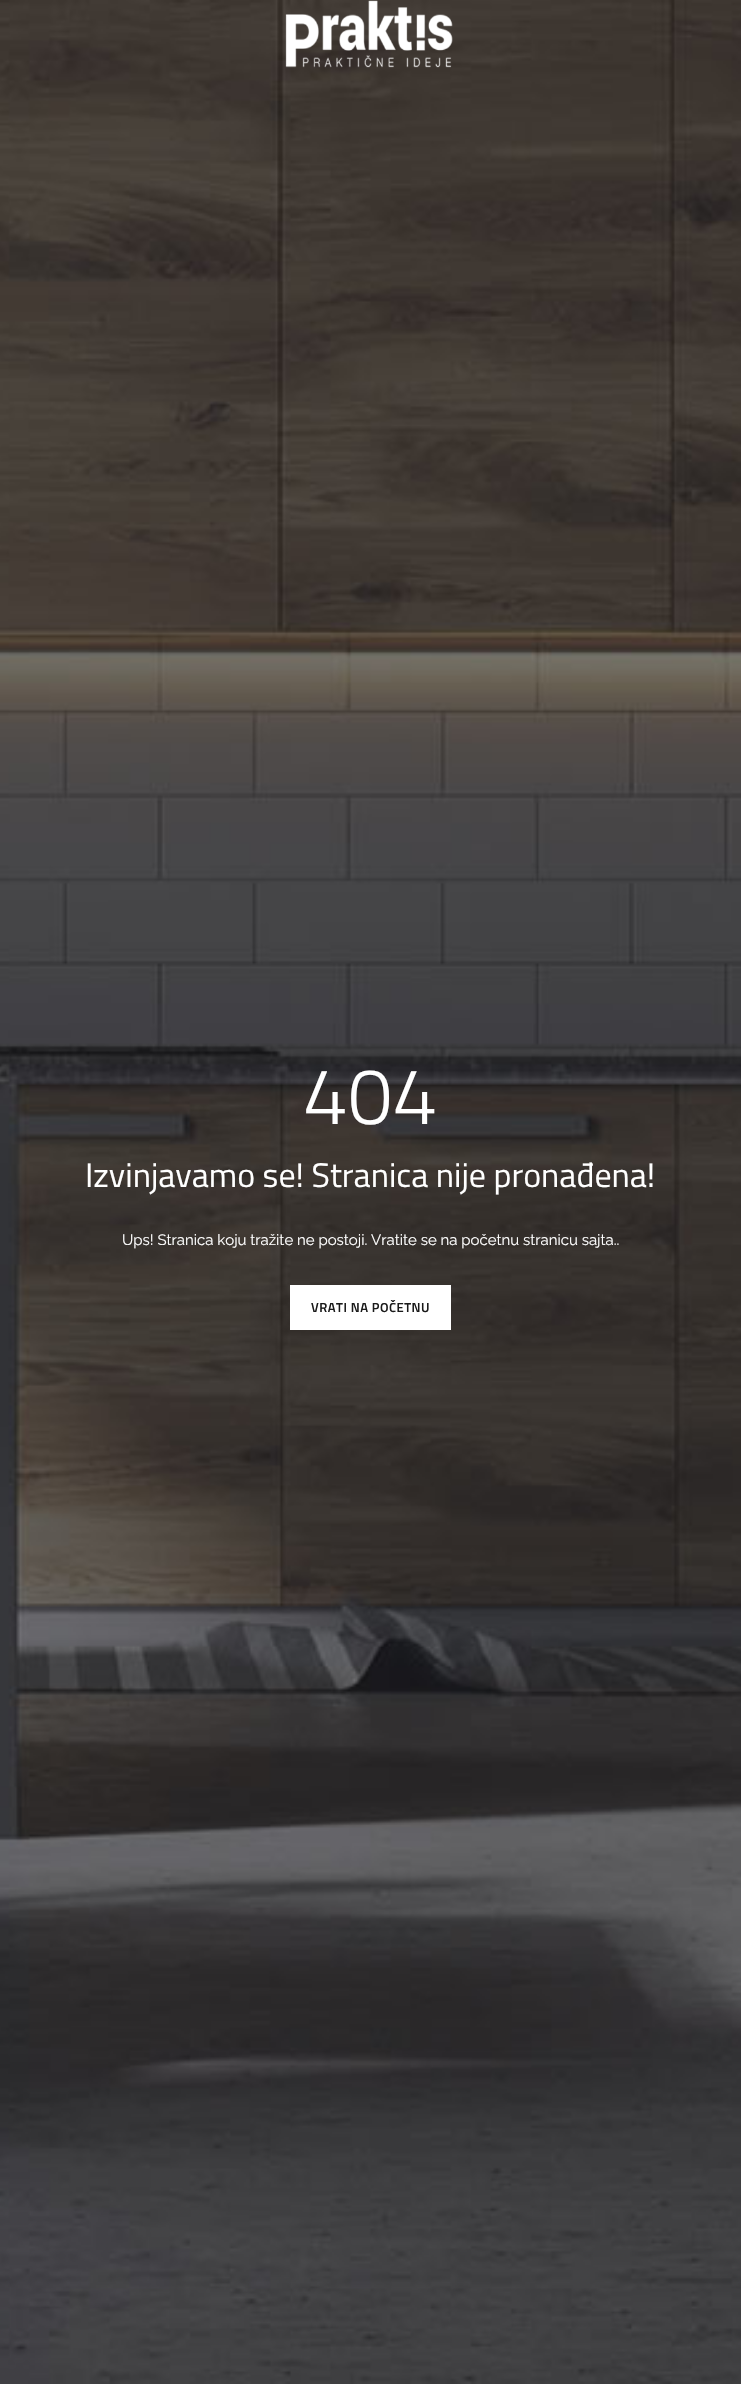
#include "include/core/SkBlurTypes.h"
#include "include/core/SkCanvas.h"
#include "include/core/SkData.h"
#include "include/core/SkFont.h"
#include "include/core/SkFontMgr.h"
#include "include/core/SkImage.h"
#include "include/core/SkMaskFilter.h"
#include "include/core/SkPaint.h"
#include "include/core/SkPathBuilder.h"
#include "include/core/SkTextBlob.h"
#include "include/effects/SkDashPathEffect.h"
#include "include/effects/SkGradientShader.h"
#include "include/utils/SkParsePath.h"

extern sk_sp<SkFontMgr> fontMgr;

static SkFont font(const char* family, int weight, float size, bool italic = false) {
    SkFontStyle style(weight, SkFontStyle::kNormal_Width,
        italic ? SkFontStyle::kItalic_Slant : SkFontStyle::kUpright_Slant);
    SkFont result(fontMgr->matchFamilyStyle(family, style), size);
    result.setSubpixel(true);
    return result;
}

static void drawLabel(SkCanvas* canvas, const char* s, float x, float y, const SkFont& font, SkColor color) {
    SkPaint ink(SkColor4f::FromColor(color));
    ink.setAntiAlias(true);
    canvas->drawString(s, x, y, font, ink);
}

static void drawTracked(SkCanvas* canvas, const char* s, float x, float y, const SkFont& font, const SkPaint& ink, float letter, float word) {
    std::vector<SkGlyphID> glyphs(font.countText(s, strlen(s), SkTextEncoding::kUTF8));
    std::vector<float> xs(glyphs.size());
    font.textToGlyphs(s, strlen(s), SkTextEncoding::kUTF8, glyphs);
    font.getXPos(glyphs, xs, x);
    float extra = 0;
    for (size_t i = 0; i < glyphs.size(); i++) {
        xs[i] += extra;
        extra += letter + word * (glyphs[i] == font.unicharToGlyph(' '));
    }
    canvas->drawTextBlob(SkTextBlob::MakeFromPosHGlyphs(glyphs, xs, y, font), 0, 0, ink);
}

static void fillRect(SkCanvas* canvas, float x, float y, float w, float h, SkColor color) {
    SkPaint ink(SkColor4f::FromColor(color));
    ink.setAntiAlias(true);
    canvas->drawRect(SkRect::MakeXYWH(x, y, w, h), ink);
}

static void drawPhoto(SkCanvas* canvas, const char* path, float x, float y, float w, float h) {
    auto image = SkImages::DeferredFromEncodedData(SkData::MakeFromFileName(path));
    canvas->drawImageRect(image, SkRect::MakeXYWH(x, y, w, h), SkSamplingOptions());
}

void draw(SkCanvas* canvas) {
    SkPaint paint;
    paint.setAntiAlias(true);
    canvas->clear(0xFFFFFFFF);
    drawPhoto(canvas, "assets/img1.png", 0, 0, 741, 2384);
    drawPhoto(canvas, "assets/img2.png", 285, 0, 168, 68);
    SkFont font1 = font("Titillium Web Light", 300, 80);
    drawLabel(canvas, "404", 303, 1124, font1, 0xFFFFFFFF);
    SkFont font2 = font("Titillium Web", 400, 34);
    drawLabel(canvas, "Izvinjavamo se! Stranica nije pronađena!", 85, 1187, font2, 0xFFFFFFFF);
    SkFont font3 = font("Raleway", 400, 15);
    drawLabel(canvas, "Ups! Stranica koju tražite ne postoji. Vratite se na početnu stranicu sajta..", 122, 1245, font3, 0xFFFFFFFF);
    fillRect(canvas, 290, 1285, 161, 45, 0xFFFFFFFF);
    SkFont font4 = font("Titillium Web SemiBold", 600, 13);
    paint.setColor(0xFF1A1A1A);
    drawTracked(canvas, "VRATI NA POČETNU", 311, 1312, font4, paint, 0.5f, 0);
}
